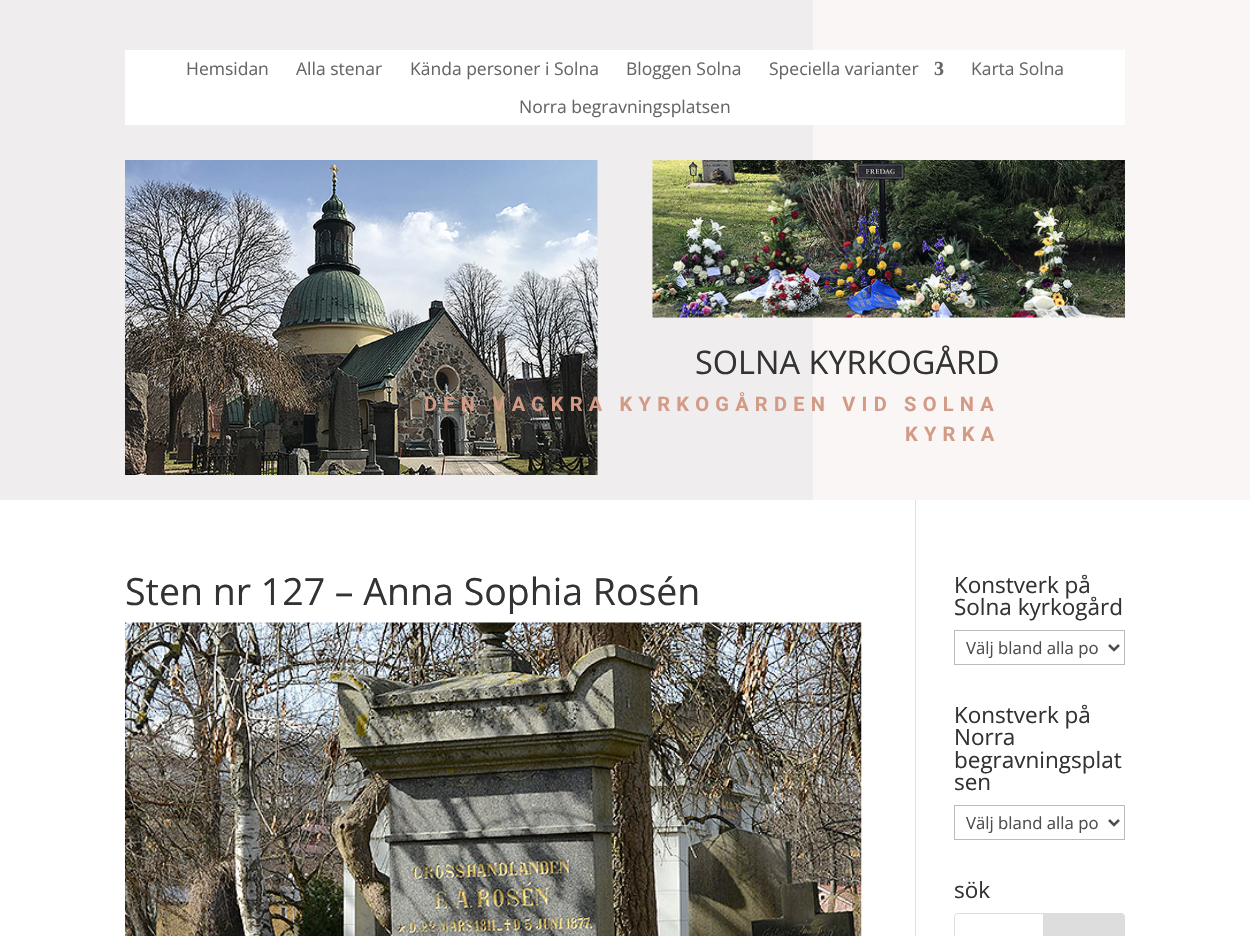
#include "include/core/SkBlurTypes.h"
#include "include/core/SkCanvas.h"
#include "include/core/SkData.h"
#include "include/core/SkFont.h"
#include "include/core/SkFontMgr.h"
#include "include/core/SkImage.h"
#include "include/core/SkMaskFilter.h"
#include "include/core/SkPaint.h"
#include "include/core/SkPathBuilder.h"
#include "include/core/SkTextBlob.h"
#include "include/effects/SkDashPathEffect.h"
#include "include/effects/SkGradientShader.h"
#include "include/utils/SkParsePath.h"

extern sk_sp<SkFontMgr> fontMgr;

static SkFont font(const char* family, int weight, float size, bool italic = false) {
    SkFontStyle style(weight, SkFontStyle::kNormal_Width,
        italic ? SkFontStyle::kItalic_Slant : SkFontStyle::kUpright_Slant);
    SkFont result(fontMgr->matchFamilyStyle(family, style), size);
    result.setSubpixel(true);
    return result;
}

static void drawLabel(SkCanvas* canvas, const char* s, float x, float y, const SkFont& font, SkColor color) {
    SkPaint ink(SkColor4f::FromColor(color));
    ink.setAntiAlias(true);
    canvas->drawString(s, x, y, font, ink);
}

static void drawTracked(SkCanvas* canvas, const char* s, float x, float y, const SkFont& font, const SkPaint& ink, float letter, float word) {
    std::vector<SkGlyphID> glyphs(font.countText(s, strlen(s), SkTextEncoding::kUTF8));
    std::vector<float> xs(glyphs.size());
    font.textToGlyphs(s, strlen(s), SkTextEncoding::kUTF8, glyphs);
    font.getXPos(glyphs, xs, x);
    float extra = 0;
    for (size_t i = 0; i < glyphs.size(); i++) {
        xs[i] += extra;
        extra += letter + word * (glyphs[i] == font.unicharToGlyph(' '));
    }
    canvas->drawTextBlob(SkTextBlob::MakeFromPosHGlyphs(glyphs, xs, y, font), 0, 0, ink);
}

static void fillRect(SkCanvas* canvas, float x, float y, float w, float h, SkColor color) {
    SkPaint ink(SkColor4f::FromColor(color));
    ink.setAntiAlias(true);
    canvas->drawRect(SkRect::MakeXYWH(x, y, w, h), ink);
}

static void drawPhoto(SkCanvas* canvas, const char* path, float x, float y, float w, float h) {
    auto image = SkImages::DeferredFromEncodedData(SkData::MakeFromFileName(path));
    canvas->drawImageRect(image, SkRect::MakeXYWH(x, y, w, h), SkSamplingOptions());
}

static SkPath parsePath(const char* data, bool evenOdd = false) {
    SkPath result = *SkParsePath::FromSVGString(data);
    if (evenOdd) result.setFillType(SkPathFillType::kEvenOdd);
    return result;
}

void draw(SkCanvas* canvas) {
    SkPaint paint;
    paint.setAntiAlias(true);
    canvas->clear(0xFFFFFFFF);
    fillRect(canvas, 0, 0, 813, 500, 0xFFF0EDEE);
    fillRect(canvas, 813, 0, 437, 500, 0xFFF9F6F5);
    fillRect(canvas, 125, 50, 1000, 75, 0xFFFFFFFF);
    SkFont font1 = font("Open Sans", 400, 17.5f);
    drawLabel(canvas, "Hemsidan", 186, 75, font1, 0xFF666666);
    drawLabel(canvas, "Alla stenar", 296, 75, font1, 0xFF666666);
    drawLabel(canvas, "Kända personer i Solna", 410, 75, font1, 0xFF666666);
    drawLabel(canvas, "Bloggen Solna", 626, 75, font1, 0xFF666666);
    drawLabel(canvas, "Speciella varianter", 769, 75, font1, 0xFF666666);
    SkFont font2 = font("Liberation Serif", 700, 20);
    drawLabel(canvas, "3", 934, 75, font2, 0xFF666666);
    drawLabel(canvas, "Karta Solna", 971, 75, font1, 0xFF666666);
    drawLabel(canvas, "Norra begravningsplatsen", 519, 113, font1, 0xFF666666);
    drawPhoto(canvas, "assets/img1.png", 125, 160, 473, 315);
    drawPhoto(canvas, "assets/img2.png", 652, 160, 473, 158);
    SkFont font3 = font("Open Sans", 400, 32.5f);
    drawLabel(canvas, "SOLNA KYRKOGÅRD", 695, 374, font3, 0xFF333333);
    SkFont font4 = font("Roboto", 700, 20);
    paint.setColor(0xFFD39B86);
    drawTracked(canvas, "DEN VACKRA KYRKOGÅRDEN VID SOLNA", 424, 411, font4, paint, 6.25f, 0);
    drawTracked(canvas, "KYRKA", 905, 441, font4, paint, 6.25f, 0);
    fillRect(canvas, 915, 500, 1, 436, 0xFFE2E2E2);
    SkFont font5 = font("Open Sans", 400, 37.5f);
    drawLabel(canvas, "Sten nr 127 – Anna Sophia Rosén", 125, 605, font5, 0xFF333333);
    drawPhoto(canvas, "assets/img3.png", 125, 622, 737, 314);
    SkFont font6 = font("Open Sans", 400, 22.5f);
    drawLabel(canvas, "Konstverk på", 954, 593, font6, 0xFF333333);
    drawLabel(canvas, "Solna kyrkogård", 954, 615, font6, 0xFF333333);
    paint.setStroke(true);
    paint.setStrokeWidth(1);
    paint.setColor(0xFFBBBBBB);
    canvas->drawRect(SkRect::MakeXYWH(954.5f, 630.5f, 170, 34), paint);
    paint.setStrokeWidth(2.5f);
    paint.setColor(0xFF4E4E4E);
    canvas->drawPath(parsePath("M1109 645L1114 650L1119 645"), paint);
    SkFont font7 = font("Open Sans", 400, 16.75f);
    drawLabel(canvas, "Välj bland alla po", 966, 654, font7, 0xFF4E4E4E);
    drawLabel(canvas, "Konstverk på", 954, 723, font6, 0xFF333333);
    drawLabel(canvas, "Norra", 954, 745, font6, 0xFF333333);
    drawLabel(canvas, "begravningsplat", 954, 768, font6, 0xFF333333);
    drawLabel(canvas, "sen", 954, 790, font6, 0xFF333333);
    paint.setStrokeWidth(1);
    paint.setColor(0xFFBBBBBB);
    canvas->drawRect(SkRect::MakeXYWH(954.5f, 805.5f, 170, 34), paint);
    paint.setStrokeWidth(2.5f);
    paint.setColor(0xFF4E4E4E);
    canvas->drawPath(parsePath("M1109 820L1114 825L1119 820"), paint);
    drawLabel(canvas, "Välj bland alla po", 966, 829, font7, 0xFF4E4E4E);
    drawLabel(canvas, "sök", 954, 898, font6, 0xFF333333);
    paint.setStrokeWidth(1);
    paint.setColor(0xFFDDDDDD);
    canvas->drawRoundRect(SkRect::MakeXYWH(954.5f, 913.5f, 170, 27), 3.5f, 3.5f, paint);
    paint.setStroke(false);
    canvas->drawPath(parsePath("M1043.5 913.5H1121C1123 913.5 1124.5 915 1124.5 917V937C1124.5 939 1123 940.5 1121 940.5H1043.5Z"), paint);
    paint.setStroke(true);
    canvas->drawPath(parsePath("M1043.5 913.5H1121C1123 913.5 1124.5 915 1124.5 917V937C1124.5 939 1123 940.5 1121 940.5H1043.5Z"), paint);
}
